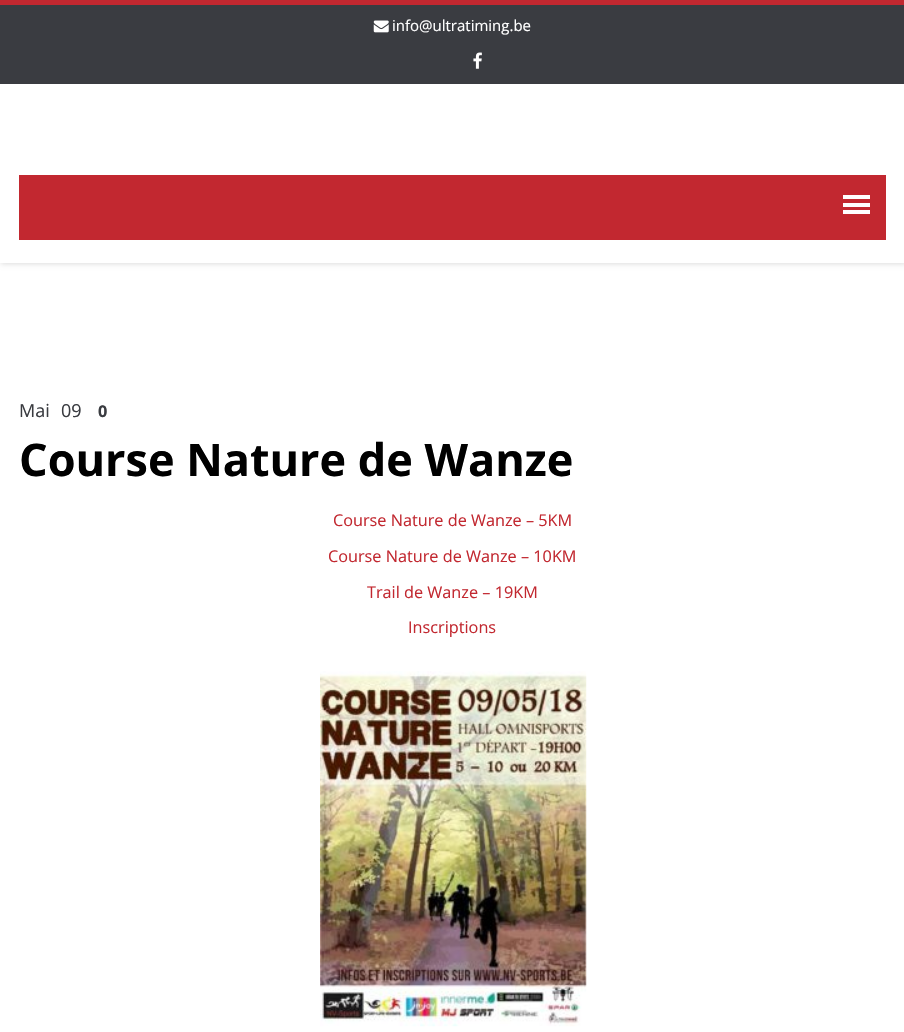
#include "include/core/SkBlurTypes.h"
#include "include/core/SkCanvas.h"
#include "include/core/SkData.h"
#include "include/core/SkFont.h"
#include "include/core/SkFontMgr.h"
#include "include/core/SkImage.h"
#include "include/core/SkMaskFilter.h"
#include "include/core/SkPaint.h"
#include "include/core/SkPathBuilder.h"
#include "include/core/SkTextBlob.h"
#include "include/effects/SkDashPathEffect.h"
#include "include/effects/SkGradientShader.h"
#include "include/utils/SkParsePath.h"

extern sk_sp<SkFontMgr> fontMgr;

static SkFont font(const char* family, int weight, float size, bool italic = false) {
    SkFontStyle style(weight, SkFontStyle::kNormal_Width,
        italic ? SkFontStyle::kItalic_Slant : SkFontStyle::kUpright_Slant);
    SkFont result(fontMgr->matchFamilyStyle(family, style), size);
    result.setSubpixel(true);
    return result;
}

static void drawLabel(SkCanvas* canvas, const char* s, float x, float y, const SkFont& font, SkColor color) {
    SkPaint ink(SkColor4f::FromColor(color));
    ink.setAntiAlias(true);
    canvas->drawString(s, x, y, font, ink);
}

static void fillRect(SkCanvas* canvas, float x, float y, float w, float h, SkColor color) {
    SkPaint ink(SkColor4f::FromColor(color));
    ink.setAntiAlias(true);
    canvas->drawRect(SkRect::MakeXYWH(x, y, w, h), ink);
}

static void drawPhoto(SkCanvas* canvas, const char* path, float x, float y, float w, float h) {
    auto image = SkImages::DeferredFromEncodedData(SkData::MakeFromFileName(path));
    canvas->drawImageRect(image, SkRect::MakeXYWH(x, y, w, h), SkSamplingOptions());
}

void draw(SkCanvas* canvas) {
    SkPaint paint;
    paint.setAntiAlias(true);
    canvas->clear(0xFFFFFFFF);
    paint.setColor(0xFFDDDDDD);
    paint.setMaskFilter(SkMaskFilter::MakeBlur(kNormal_SkBlurStyle, 2.5f));
    canvas->drawRect(SkRect::MakeXYWH(1, 1, 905, 263), paint);
    paint.setMaskFilter(nullptr);
    fillRect(canvas, 0, 5, 904, 79, 0xFF3A3C41);
    fillRect(canvas, 0, 0, 904, 5, 0xFFC22830);
    drawPhoto(canvas, "assets/img1.png", 373, 20, 16, 13);
    SkFont font1 = font("Open Sans", 400, 15);
    drawLabel(canvas, "info@ultratiming.be", 392, 31, font1, 0xFFFFFFFF);
    drawPhoto(canvas, "assets/img2.png", 473, 52, 9, 17);
    fillRect(canvas, 0, 84, 904, 179, 0xFFFFFFFF);
    fillRect(canvas, 19, 175, 867, 65, 0xFFC22830);
    fillRect(canvas, 843, 195, 27, 4, 0xFFFFFFFF);
    fillRect(canvas, 843, 203, 27, 4, 0xFFFFFFFF);
    fillRect(canvas, 843, 210, 27, 4, 0xFFFFFFFF);
    SkFont font2 = font("Open Sans", 400, 18);
    drawLabel(canvas, "Mai", 19, 417, font2, 0xFF3A3C41);
    drawLabel(canvas, "09", 61, 417, font2, 0xFF3A3C41);
    SkFont font3 = font("Open Sans", 700, 16.25f);
    drawLabel(canvas, "0", 98, 417, font3, 0xFF3A3C41);
    SkFont font4 = font("Open Sans", 700, 45);
    drawLabel(canvas, "Course Nature de Wanze", 19, 476, font4, 0xFF000000);
    SkFont font5 = font("Open Sans", 400, 16.25f);
    drawLabel(canvas, "Course Nature de Wanze – 5KM", 333, 526, font5, 0xFFC22830);
    drawLabel(canvas, "Course Nature de Wanze – 10KM", 328, 562, font5, 0xFFC22830);
    drawLabel(canvas, "Trail de Wanze – 19KM", 367, 598, font5, 0xFFC22830);
    drawLabel(canvas, "Inscriptions", 408, 633, font5, 0xFFC22830);
    drawPhoto(canvas, "assets/img3.png", 320, 671, 267, 356);
}
